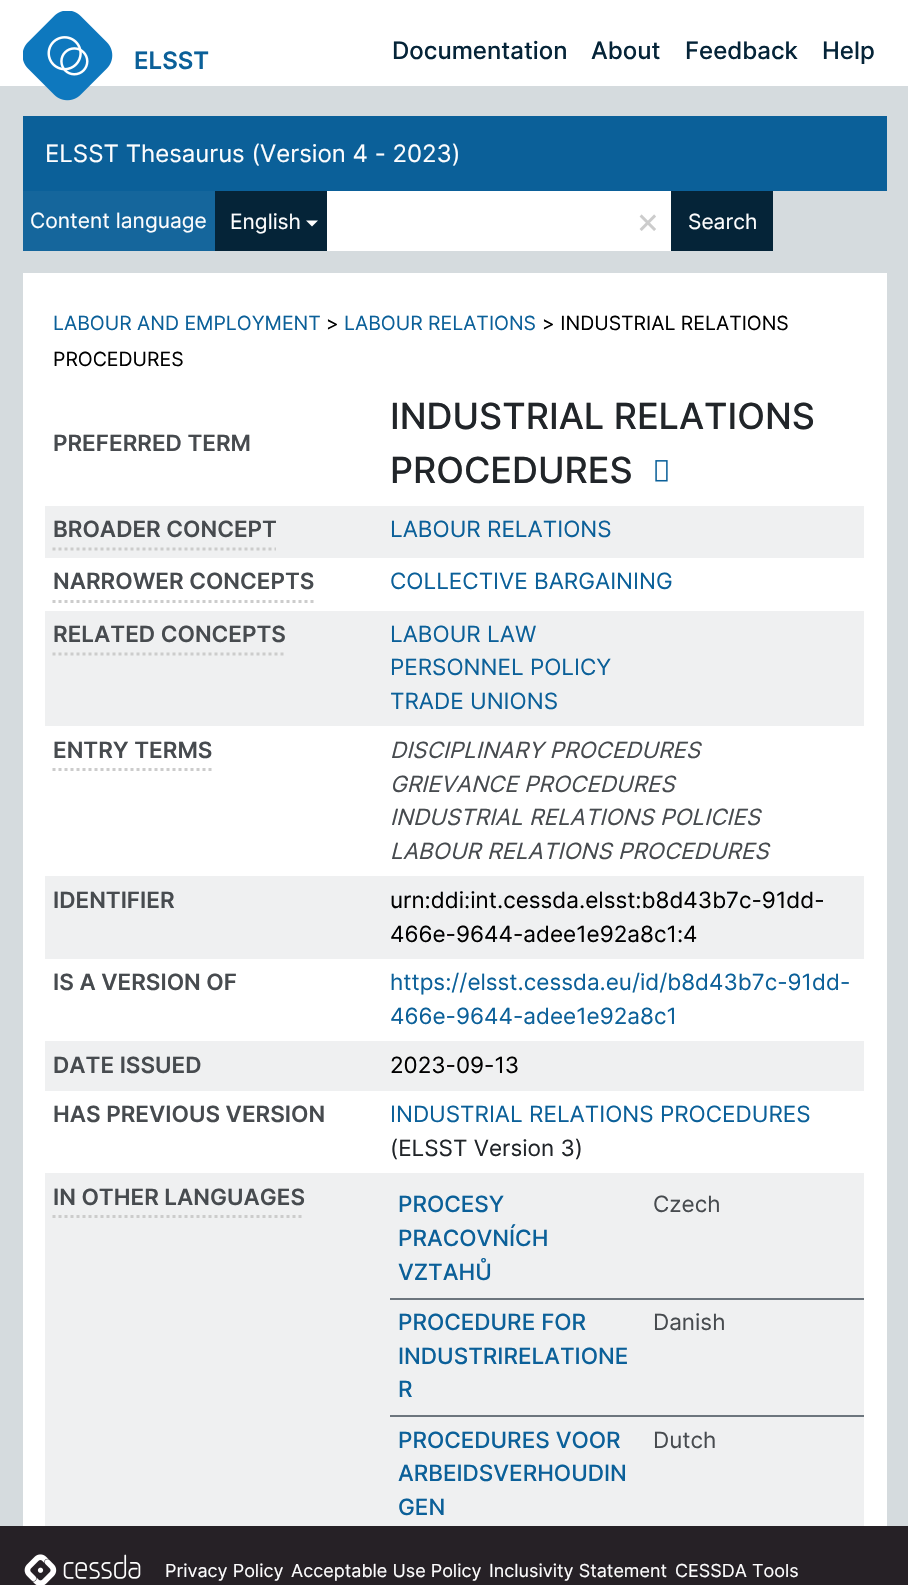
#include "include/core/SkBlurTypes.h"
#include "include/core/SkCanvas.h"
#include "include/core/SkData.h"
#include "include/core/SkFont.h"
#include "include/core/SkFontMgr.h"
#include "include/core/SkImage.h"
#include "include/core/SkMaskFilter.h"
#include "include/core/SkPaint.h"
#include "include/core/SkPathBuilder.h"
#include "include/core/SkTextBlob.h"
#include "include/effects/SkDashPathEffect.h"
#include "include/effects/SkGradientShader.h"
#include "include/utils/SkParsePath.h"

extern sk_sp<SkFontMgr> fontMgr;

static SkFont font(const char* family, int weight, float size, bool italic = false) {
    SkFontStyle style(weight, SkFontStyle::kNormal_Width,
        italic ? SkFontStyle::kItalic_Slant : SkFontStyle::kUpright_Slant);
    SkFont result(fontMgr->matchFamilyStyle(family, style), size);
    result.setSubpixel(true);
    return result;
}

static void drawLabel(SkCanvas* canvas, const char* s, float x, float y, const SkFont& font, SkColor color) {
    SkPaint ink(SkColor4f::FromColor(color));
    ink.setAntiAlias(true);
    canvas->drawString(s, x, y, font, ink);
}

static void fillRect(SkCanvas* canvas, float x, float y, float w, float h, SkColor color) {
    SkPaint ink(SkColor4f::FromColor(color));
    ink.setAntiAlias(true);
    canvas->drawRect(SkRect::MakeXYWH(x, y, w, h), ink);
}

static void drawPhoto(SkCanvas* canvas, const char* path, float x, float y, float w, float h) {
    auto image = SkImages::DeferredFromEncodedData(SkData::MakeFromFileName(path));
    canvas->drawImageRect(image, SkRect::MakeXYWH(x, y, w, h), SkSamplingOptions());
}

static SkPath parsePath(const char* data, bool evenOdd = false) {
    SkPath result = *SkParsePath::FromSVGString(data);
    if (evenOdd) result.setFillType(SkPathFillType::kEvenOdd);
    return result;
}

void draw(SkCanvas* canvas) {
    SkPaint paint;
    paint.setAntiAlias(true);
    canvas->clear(0xFFD5DBDE);
    fillRect(canvas, 0, 0, 908, 86, 0xFFFFFFFF);
    drawPhoto(canvas, "assets/img1.png", 23, 11, 90, 90);
    SkFont font1 = font("Inter", 600, 24);
    drawLabel(canvas, "ELSST", 134, 69, font1, 0xFF0B6099);
    SkFont font2 = font("Inter", 500, 24);
    drawLabel(canvas, "Documentation", 392, 59, font2, 0xFF052438);
    drawLabel(canvas, "About", 591, 59, font2, 0xFF052438);
    drawLabel(canvas, "Feedback", 685, 59, font2, 0xFF052438);
    drawLabel(canvas, "Help", 822, 59, font2, 0xFF052438);
    fillRect(canvas, 23, 116, 864, 75, 0xFF0B6099);
    SkFont font3 = font("Inter", 400, 24);
    drawLabel(canvas, "ELSST Thesaurus (Version 4 - 2023)", 45, 162, font3, 0xFFFDFDFE);
    fillRect(canvas, 23, 191, 192, 60, 0xFF15669C);
    SkFont font4 = font("Inter", 400, 21);
    drawLabel(canvas, "Content language", 30, 228, font4, 0xFFFDFDFE);
    fillRect(canvas, 215, 191, 112, 60, 0xFF052438);
    drawLabel(canvas, "English", 230, 229, font4, 0xFFFDFDFE);
    paint.setColor(0xFFFFFFFF);
    canvas->drawPath(parsePath("M306 220.5H318L312 226.5Z"), paint);
    fillRect(canvas, 327, 191, 344, 60, 0xFFFFFFFF);
    SkFont font5 = font("Inter", 400, 36);
    drawLabel(canvas, "×", 636, 233, font5, 0xFFCCCCCC);
    fillRect(canvas, 671, 191, 102, 60, 0xFF052438);
    drawLabel(canvas, "Search", 688, 229, font4, 0xFFFDFDFE);
    fillRect(canvas, 23, 273, 864, 1253, 0xFFFFFFFF);
    SkFont font6 = font("Inter", 400, 19.5f);
    drawLabel(canvas, "LABOUR AND EMPLOYMENT", 53, 330, font6, 0xFF0B6099);
    drawLabel(canvas, ">", 326, 330, font6, 0xFF000000);
    drawLabel(canvas, "LABOUR RELATIONS", 344, 330, font6, 0xFF0B6099);
    drawLabel(canvas, "> INDUSTRIAL RELATIONS", 542, 330, font6, 0xFF000000);
    drawLabel(canvas, "PROCEDURES", 53, 366, font6, 0xFF000000);
    SkFont font7 = font("Inter", 600, 22.5f);
    drawLabel(canvas, "PREFERRED TERM", 53, 451, font7, 0xFF474B4F);
    SkFont font8 = font("Inter", 500, 36);
    drawLabel(canvas, "INDUSTRIAL RELATIONS", 390, 429, font8, 0xFF212529);
    drawLabel(canvas, "PROCEDURES", 390, 483, font8, 0xFF212529);
    drawPhoto(canvas, "assets/img2.png", 655, 460, 13, 22);
    fillRect(canvas, 45, 506, 819, 52, 0xFFEFF0F1);
    paint.setStroke(true);
    paint.setStrokeWidth(3);
    paint.setColor(0xFFCCCCCC);
    paint.setPathEffect(SkDashPathEffect::Make({{3, 3}}, 0));
    canvas->drawPath(parsePath("M52.5 549H276"), paint);
    paint.setPathEffect(nullptr);
    drawLabel(canvas, "BROADER CONCEPT", 53, 537, font7, 0xFF474B4F);
    SkFont font9 = font("Inter", 400, 22.5f);
    drawLabel(canvas, "LABOUR RELATIONS", 390, 537, font9, 0xFF0B6099);
    paint.setPathEffect(SkDashPathEffect::Make({{3, 3}}, 0));
    canvas->drawPath(parsePath("M52.5 601.5H313.5"), paint);
    paint.setPathEffect(nullptr);
    drawLabel(canvas, "NARROWER CONCEPTS", 53, 589, font7, 0xFF474B4F);
    drawLabel(canvas, "COLLECTIVE BARGAINING", 390, 589, font9, 0xFF0B6099);
    fillRect(canvas, 45, 611, 819, 115, 0xFFEFF0F1);
    paint.setPathEffect(SkDashPathEffect::Make({{3, 3}}, 0));
    canvas->drawPath(parsePath("M52.5 654H285"), paint);
    paint.setPathEffect(nullptr);
    drawLabel(canvas, "RELATED CONCEPTS", 53, 642, font7, 0xFF474B4F);
    drawLabel(canvas, "LABOUR LAW", 390, 642, font9, 0xFF0B6099);
    drawLabel(canvas, "PERSONNEL POLICY", 390, 675, font9, 0xFF0B6099);
    drawLabel(canvas, "TRADE UNIONS", 390, 709, font9, 0xFF0B6099);
    paint.setPathEffect(SkDashPathEffect::Make({{3, 3}}, 0));
    canvas->drawPath(parsePath("M52.5 769.5H211.5"), paint);
    paint.setPathEffect(nullptr);
    drawLabel(canvas, "ENTRY TERMS", 53, 758, font7, 0xFF474B4F);
    SkFont font10 = font("Inter", 400, 22.5f, true);
    drawLabel(canvas, "DISCIPLINARY PROCEDURES", 390, 758, font10, 0xFF474B4F);
    drawLabel(canvas, "GRIEVANCE PROCEDURES", 390, 792, font10, 0xFF474B4F);
    drawLabel(canvas, "INDUSTRIAL RELATIONS POLICIES", 390, 825, font10, 0xFF474B4F);
    drawLabel(canvas, "LABOUR RELATIONS PROCEDURES", 390, 859, font10, 0xFF474B4F);
    fillRect(canvas, 45, 876, 819, 83, 0xFFEFF0F1);
    drawLabel(canvas, "IDENTIFIER", 53, 908, font7, 0xFF474B4F);
    drawLabel(canvas, "urn:ddi:int.cessda.elsst:b8d43b7c-91dd-", 390, 908, font9, 0xFF000000);
    drawLabel(canvas, "466e-9644-adee1e92a8c1:4", 390, 942, font9, 0xFF000000);
    drawLabel(canvas, "IS A VERSION OF", 53, 990, font7, 0xFF474B4F);
    drawLabel(canvas, "https://elsst.cessda.eu/id/b8d43b7c-91dd-", 390, 990, font9, 0xFF0B6099);
    drawLabel(canvas, "466e-9644-adee1e92a8c1", 390, 1024, font9, 0xFF0B6099);
    fillRect(canvas, 45, 1041, 819, 50, 0xFFEFF0F1);
    drawLabel(canvas, "DATE ISSUED", 53, 1073, font7, 0xFF474B4F);
    drawLabel(canvas, "2023-09-13", 390, 1073, font9, 0xFF000000);
    drawLabel(canvas, "HAS PREVIOUS VERSION", 53, 1122, font7, 0xFF474B4F);
    drawLabel(canvas, "INDUSTRIAL RELATIONS PROCEDURES", 390, 1122, font9, 0xFF0B6099);
    drawLabel(canvas, "(ELSST Version 3)", 390, 1156, font9, 0xFF212529);
    fillRect(canvas, 45, 1173, 819, 353, 0xFFEFF0F1);
    paint.setPathEffect(SkDashPathEffect::Make({{3, 3}}, 0));
    canvas->drawPath(parsePath("M52.5 1216.5H304.5"), paint);
    paint.setPathEffect(nullptr);
    drawLabel(canvas, "IN OTHER LANGUAGES", 53, 1205, font7, 0xFF474B4F);
    SkFont font11 = font("Inter", 500, 22.5f);
    drawLabel(canvas, "PROCESY", 398, 1212, font11, 0xFF0B6099);
    drawLabel(canvas, "PRACOVNÍCH", 398, 1246, font11, 0xFF0B6099);
    drawLabel(canvas, "VZTAHŮ", 398, 1280, font11, 0xFF0B6099);
    drawLabel(canvas, "Czech", 653, 1212, font9, 0xFF474B4F);
    fillRect(canvas, 390, 1298, 474, 2, 0xFF6C757D);
    drawLabel(canvas, "PROCEDURE FOR", 398, 1330, font11, 0xFF0B6099);
    drawLabel(canvas, "INDUSTRIRELATIONE", 398, 1364, font11, 0xFF0B6099);
    drawLabel(canvas, "R", 398, 1397, font11, 0xFF0B6099);
    drawLabel(canvas, "Danish", 653, 1330, font9, 0xFF474B4F);
    fillRect(canvas, 390, 1415, 474, 2, 0xFF6C757D);
    drawLabel(canvas, "PROCEDURES VOOR", 398, 1448, font11, 0xFF0B6099);
    drawLabel(canvas, "ARBEIDSVERHOUDIN", 398, 1481, font11, 0xFF0B6099);
    drawLabel(canvas, "GEN", 398, 1515, font11, 0xFF0B6099);
    drawLabel(canvas, "Dutch", 653, 1448, font9, 0xFF474B4F);
    fillRect(canvas, 0, 1526, 908, 59, 0xFF262126);
    drawPhoto(canvas, "assets/img3.png", 24, 1554, 117, 31);
    SkFont font12 = font("Inter", 400, 18);
    drawLabel(canvas, "Privacy Policy", 165, 1577, font12, 0xFFFDFDFE);
    drawLabel(canvas, "Acceptable Use Policy", 291, 1577, font12, 0xFFFDFDFE);
    drawLabel(canvas, "Inclusivity Statement", 489, 1577, font12, 0xFFFDFDFE);
    drawLabel(canvas, "CESSDA Tools", 675, 1577, font12, 0xFFFDFDFE);
}
